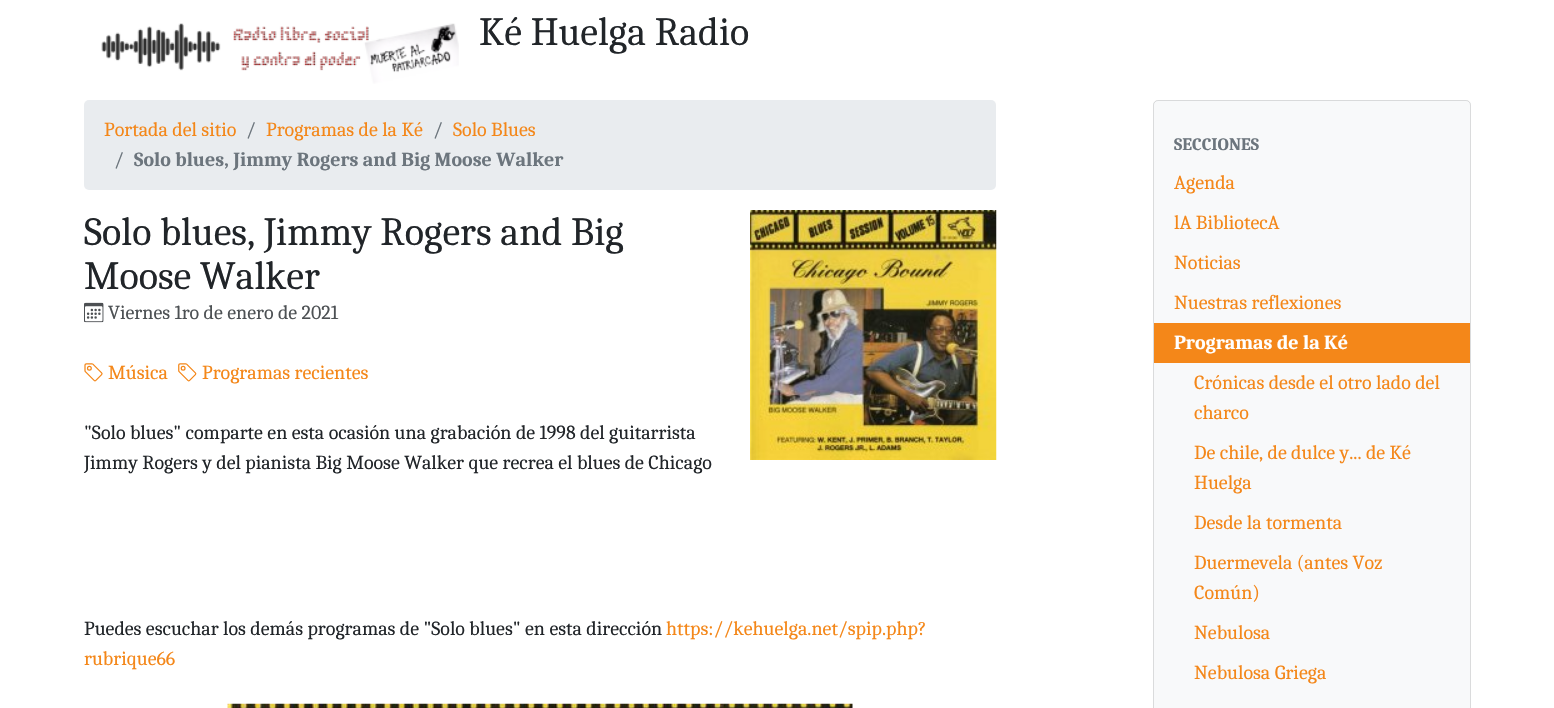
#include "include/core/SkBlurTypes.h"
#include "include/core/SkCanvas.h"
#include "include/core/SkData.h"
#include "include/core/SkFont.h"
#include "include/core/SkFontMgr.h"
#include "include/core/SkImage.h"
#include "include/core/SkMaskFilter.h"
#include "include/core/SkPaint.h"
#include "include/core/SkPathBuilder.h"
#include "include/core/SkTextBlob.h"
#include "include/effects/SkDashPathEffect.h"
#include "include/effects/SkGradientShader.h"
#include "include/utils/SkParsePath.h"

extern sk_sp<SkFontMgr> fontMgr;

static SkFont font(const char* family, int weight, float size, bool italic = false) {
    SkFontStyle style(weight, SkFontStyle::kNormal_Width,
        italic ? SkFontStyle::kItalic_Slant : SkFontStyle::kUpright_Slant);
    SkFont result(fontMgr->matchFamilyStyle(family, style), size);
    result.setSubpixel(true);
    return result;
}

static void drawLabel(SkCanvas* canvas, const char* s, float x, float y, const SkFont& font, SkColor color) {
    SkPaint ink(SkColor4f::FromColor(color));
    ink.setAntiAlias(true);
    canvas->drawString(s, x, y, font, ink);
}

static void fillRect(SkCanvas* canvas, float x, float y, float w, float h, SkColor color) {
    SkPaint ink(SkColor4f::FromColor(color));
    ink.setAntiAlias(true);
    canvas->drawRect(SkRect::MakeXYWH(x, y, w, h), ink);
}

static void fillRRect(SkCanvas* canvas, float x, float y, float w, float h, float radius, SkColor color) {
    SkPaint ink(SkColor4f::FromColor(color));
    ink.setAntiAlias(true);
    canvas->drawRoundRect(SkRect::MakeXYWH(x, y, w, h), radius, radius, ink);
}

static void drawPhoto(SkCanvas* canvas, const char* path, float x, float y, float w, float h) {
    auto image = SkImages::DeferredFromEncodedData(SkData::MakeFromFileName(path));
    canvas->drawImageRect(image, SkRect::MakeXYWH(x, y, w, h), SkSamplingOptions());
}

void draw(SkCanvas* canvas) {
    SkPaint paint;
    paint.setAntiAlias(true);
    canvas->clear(0xFFFFFFFF);
    drawPhoto(canvas, "assets/img1.png", 101, 23, 358, 61);
    SkFont font1 = font("Caladea", 400, 40);
    drawLabel(canvas, "Ké Huelga Radio", 479, 45, font1, 0xFF212529);
    fillRRect(canvas, 84, 100, 912, 90, 5, 0xFFE9ECEF);
    SkFont font2 = font("Caladea", 400, 20);
    drawLabel(canvas, "Portada del sitio", 104, 136, font2, 0xFFF48719);
    drawLabel(canvas, "/", 246, 136, font2, 0xFF6C757D);
    drawLabel(canvas, "Programas de la Ké", 266, 136, font2, 0xFFF48719);
    drawLabel(canvas, "/", 433, 136, font2, 0xFF6C757D);
    drawLabel(canvas, "Solo Blues", 453, 136, font2, 0xFFF48719);
    drawLabel(canvas, "/", 114, 166, font2, 0xFF6C757D);
    SkFont font3 = font("Caladea", 700, 20);
    drawLabel(canvas, "Solo blues, Jimmy Rogers and Big Moose Walker", 134, 166, font3, 0xFF6C757D);
    drawLabel(canvas, "Solo blues, Jimmy Rogers and Big", 84, 245, font1, 0xFF212529);
    drawLabel(canvas, "Moose Walker", 84, 289, font1, 0xFF212529);
    drawPhoto(canvas, "assets/img2.png", 750, 210, 247, 250);
    drawPhoto(canvas, "assets/img3.png", 84, 302, 20, 21);
    drawLabel(canvas, "Viernes 1ro de enero de 2021", 108, 319, font2, 0xFF4D5154);
    drawPhoto(canvas, "assets/img4.png", 84, 363, 19, 19);
    drawLabel(canvas, "Música", 108, 379, font2, 0xFFF48719);
    drawPhoto(canvas, "assets/img5.png", 178, 363, 19, 19);
    drawLabel(canvas, "Programas recientes", 202, 379, font2, 0xFFF48719);
    drawLabel(canvas, "\"Solo blues\" comparte en esta ocasión una grabación de 1998 del guitarrista", 84, 439, font2, 0xFF212529);
    drawLabel(canvas, "Jimmy Rogers y del pianista Big Moose Walker que recrea el blues de Chicago", 84, 469, font2, 0xFF212529);
    drawLabel(canvas, "Puedes escuchar los demás programas de \"Solo blues\" en esta dirección", 84, 635, font2, 0xFF212529);
    drawLabel(canvas, "https://kehuelga.net/spip.php?", 666, 635, font2, 0xFFF48719);
    drawLabel(canvas, "rubrique66", 84, 665, font2, 0xFFF48719);
    drawPhoto(canvas, "assets/img6.png", 227, 703, 626, 5);
    fillRRect(canvas, 1153, 100, 318, 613, 5, 0xFFF8F9FA);
    paint.setStroke(true);
    paint.setStrokeWidth(1);
    paint.setColor(0x1F000000);
    canvas->drawRoundRect(SkRect::MakeXYWH(1153.5f, 100.5f, 317, 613), 4.5f, 4.5f, paint);
    SkFont font4 = font("Caladea", 700, 17.5f);
    drawLabel(canvas, "SECCIONES", 1174, 150, font4, 0xFF6C757D);
    drawLabel(canvas, "Agenda", 1174, 189, font2, 0xFFF48719);
    drawLabel(canvas, "lA BibliotecA", 1174, 229, font2, 0xFFF48719);
    drawLabel(canvas, "Noticias", 1174, 269, font2, 0xFFF48719);
    drawLabel(canvas, "Nuestras reflexiones", 1174, 309, font2, 0xFFF48719);
    fillRect(canvas, 1154, 323, 316, 40, 0xFFF48719);
    drawLabel(canvas, "Programas de la Ké", 1174, 349, font3, 0xFFFFFFFF);
    drawLabel(canvas, "Crónicas desde el otro lado del", 1194, 389, font2, 0xFFF48719);
    drawLabel(canvas, "charco", 1194, 419, font2, 0xFFF48719);
    drawLabel(canvas, "De chile, de dulce y... de Ké", 1194, 459, font2, 0xFFF48719);
    drawLabel(canvas, "Huelga", 1194, 489, font2, 0xFFF48719);
    drawLabel(canvas, "Desde la tormenta", 1194, 529, font2, 0xFFF48719);
    drawLabel(canvas, "Duermevela (antes Voz", 1194, 569, font2, 0xFFF48719);
    drawLabel(canvas, "Común)", 1194, 599, font2, 0xFFF48719);
    drawLabel(canvas, "Nebulosa", 1194, 639, font2, 0xFFF48719);
    drawLabel(canvas, "Nebulosa Griega", 1194, 679, font2, 0xFFF48719);
}
